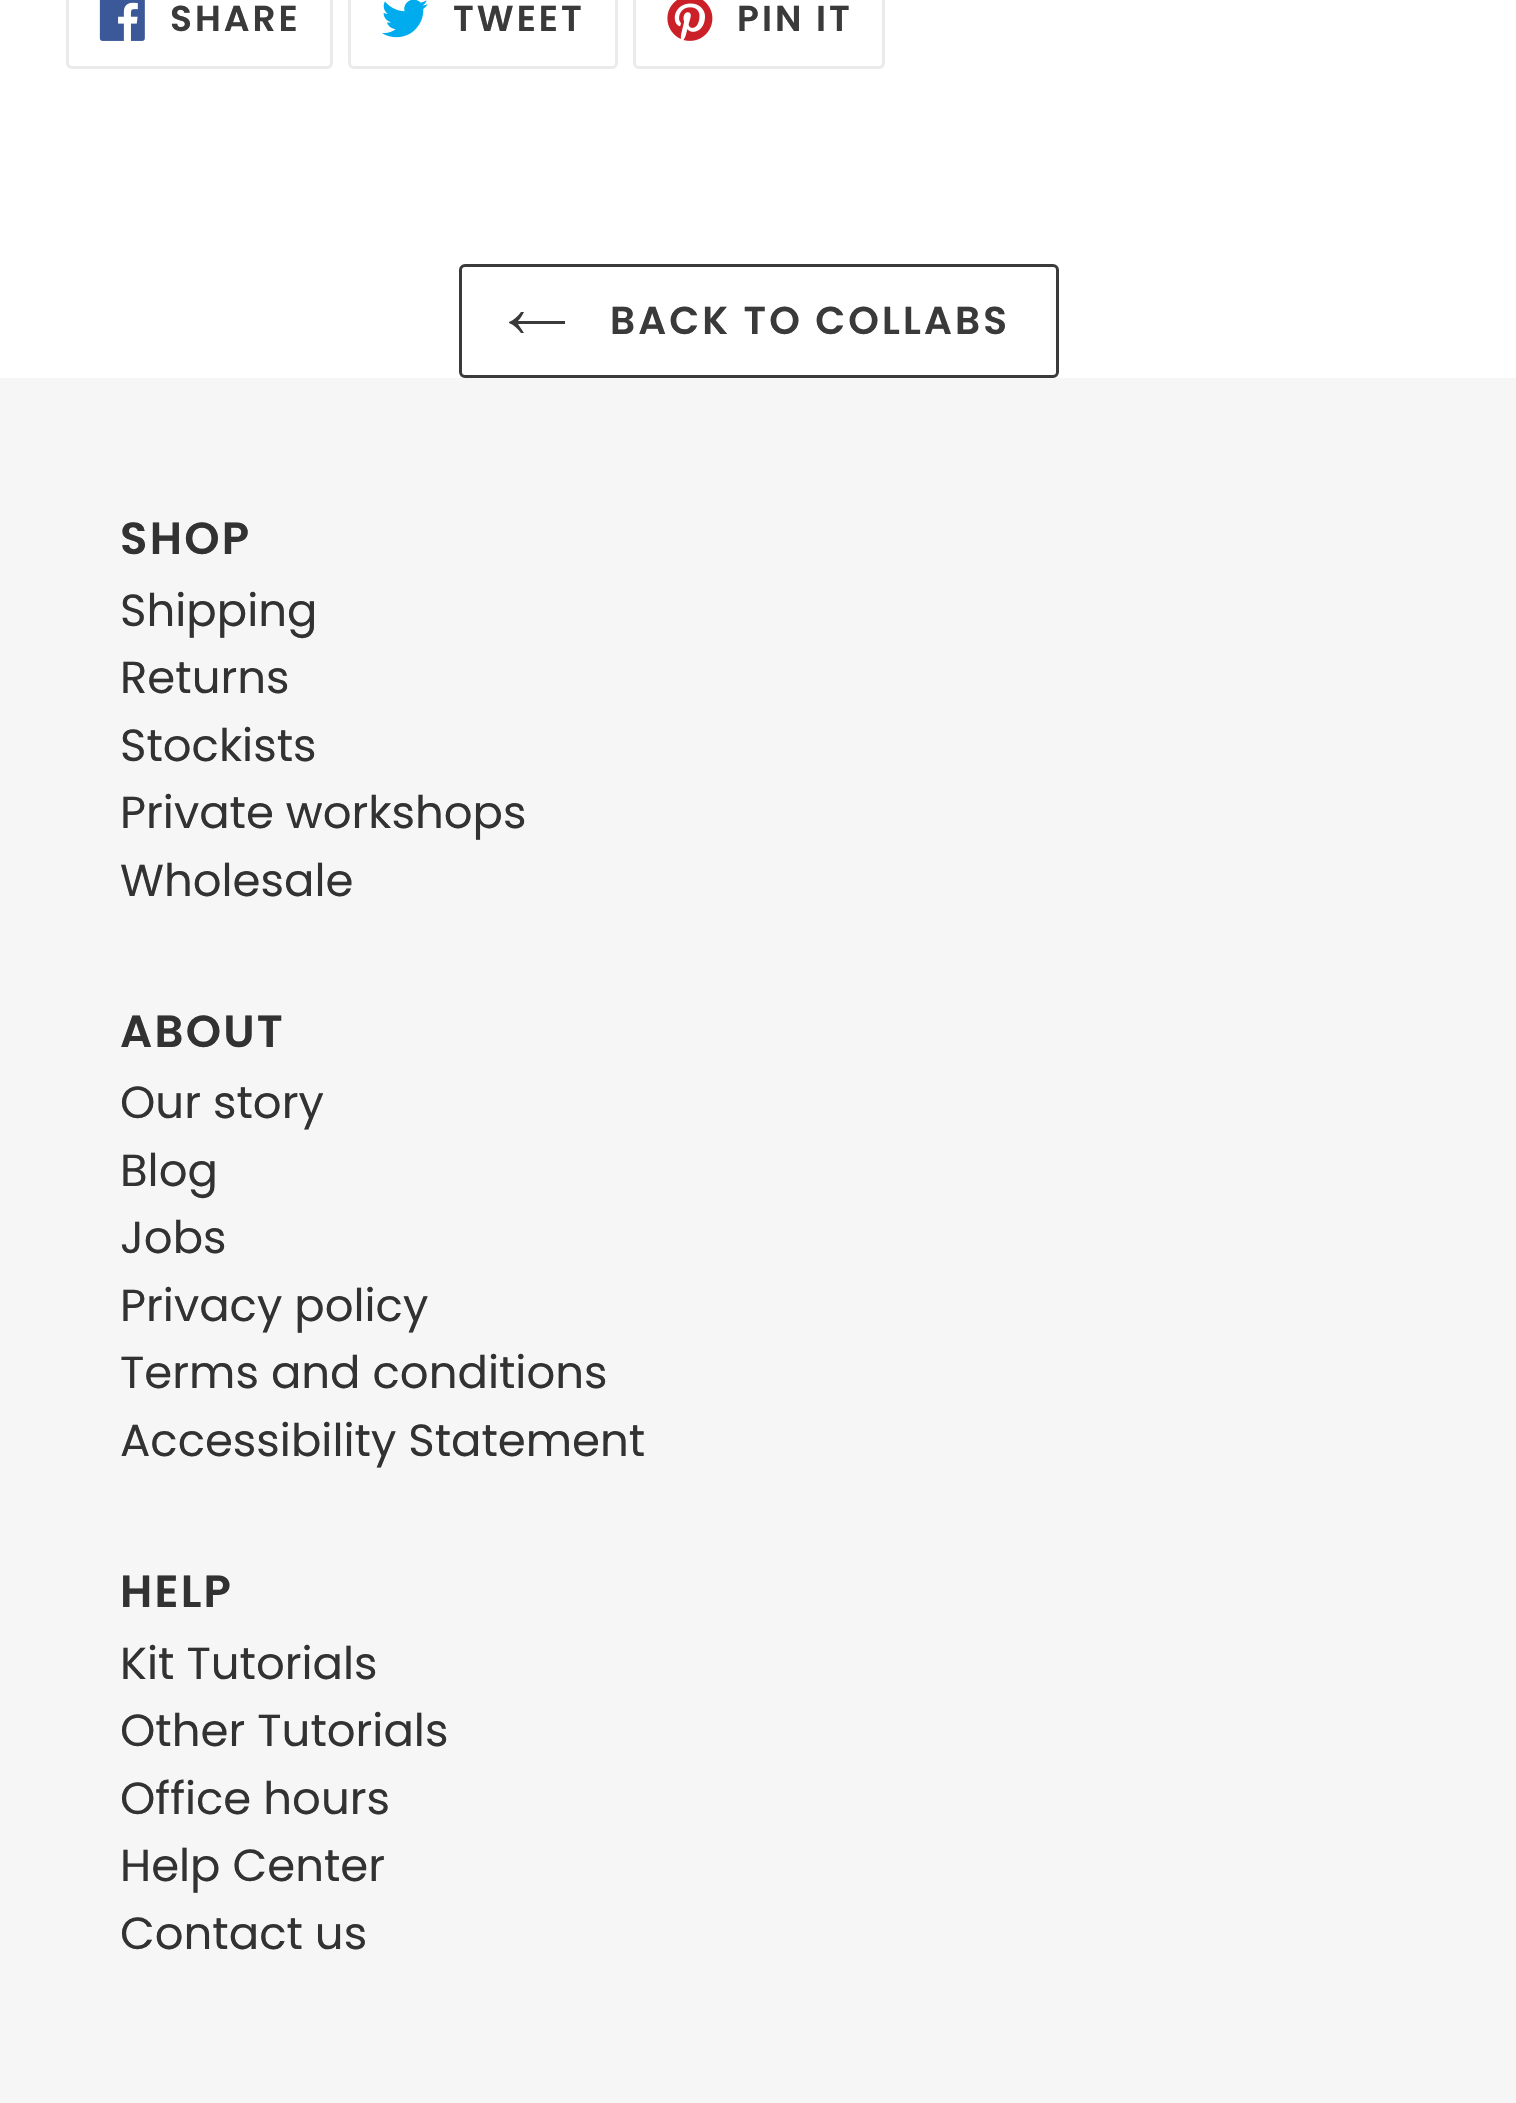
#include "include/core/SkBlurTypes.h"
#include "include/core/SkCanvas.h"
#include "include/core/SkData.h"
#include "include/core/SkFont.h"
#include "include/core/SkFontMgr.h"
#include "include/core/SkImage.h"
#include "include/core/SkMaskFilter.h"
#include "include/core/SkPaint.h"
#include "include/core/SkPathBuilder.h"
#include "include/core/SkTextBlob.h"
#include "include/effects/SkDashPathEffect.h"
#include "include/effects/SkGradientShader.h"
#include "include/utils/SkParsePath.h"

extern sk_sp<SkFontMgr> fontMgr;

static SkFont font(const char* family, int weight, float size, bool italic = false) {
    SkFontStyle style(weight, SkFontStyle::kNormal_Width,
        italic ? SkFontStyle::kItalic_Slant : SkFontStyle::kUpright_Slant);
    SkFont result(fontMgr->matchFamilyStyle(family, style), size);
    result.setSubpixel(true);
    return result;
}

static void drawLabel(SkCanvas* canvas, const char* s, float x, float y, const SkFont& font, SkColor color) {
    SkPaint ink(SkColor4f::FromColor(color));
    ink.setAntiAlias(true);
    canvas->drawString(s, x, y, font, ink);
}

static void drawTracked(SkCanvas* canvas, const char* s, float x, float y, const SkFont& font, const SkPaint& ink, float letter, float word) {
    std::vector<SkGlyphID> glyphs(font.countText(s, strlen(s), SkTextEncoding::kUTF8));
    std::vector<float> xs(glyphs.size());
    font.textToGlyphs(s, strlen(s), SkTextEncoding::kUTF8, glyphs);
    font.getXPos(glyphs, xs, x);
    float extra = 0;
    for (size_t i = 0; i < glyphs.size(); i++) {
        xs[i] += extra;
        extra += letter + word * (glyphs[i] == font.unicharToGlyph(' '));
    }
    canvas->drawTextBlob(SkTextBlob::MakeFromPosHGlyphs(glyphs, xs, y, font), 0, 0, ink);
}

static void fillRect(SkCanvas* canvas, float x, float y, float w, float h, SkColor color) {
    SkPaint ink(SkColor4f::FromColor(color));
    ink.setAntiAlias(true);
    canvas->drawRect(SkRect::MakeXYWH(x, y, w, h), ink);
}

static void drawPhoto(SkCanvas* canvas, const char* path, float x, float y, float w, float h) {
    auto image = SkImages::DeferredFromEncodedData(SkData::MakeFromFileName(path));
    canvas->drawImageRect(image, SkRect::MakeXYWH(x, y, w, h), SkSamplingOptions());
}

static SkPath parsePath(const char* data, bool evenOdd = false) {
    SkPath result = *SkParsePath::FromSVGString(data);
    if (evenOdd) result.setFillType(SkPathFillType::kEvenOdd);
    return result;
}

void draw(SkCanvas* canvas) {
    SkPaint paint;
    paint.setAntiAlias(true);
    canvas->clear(0xFFFFFFFF);
    paint.setStroke(true);
    paint.setStrokeWidth(3);
    paint.setColor(0xFFEBEBEB);
    canvas->drawRoundRect(SkRect::MakeXYWH(67.5f, -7.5f, 264, 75), 4.5f, 4.5f, paint);
    drawPhoto(canvas, "assets/img1.png", 99, 0, 46, 41);
    SkFont font1 = font("Poppins", 600, 36);
    paint.setStroke(false);
    paint.setColor(0xFF3A3A3A);
    drawTracked(canvas, "SHARE", 170, 31, font1, paint, 3, 0);
    paint.setStroke(true);
    paint.setColor(0xFFEBEBEB);
    canvas->drawRoundRect(SkRect::MakeXYWH(349.5f, -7.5f, 267, 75), 4.5f, 4.5f, paint);
    drawPhoto(canvas, "assets/img2.png", 382, 0, 46, 38);
    paint.setStroke(false);
    paint.setColor(0xFF3A3A3A);
    drawTracked(canvas, "TWEET", 453, 31, font1, paint, 3, 0);
    paint.setStroke(true);
    paint.setColor(0xFFEBEBEB);
    canvas->drawRoundRect(SkRect::MakeXYWH(634.5f, -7.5f, 249, 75), 4.5f, 4.5f, paint);
    drawPhoto(canvas, "assets/img3.png", 667, 0, 46, 41);
    paint.setStroke(false);
    paint.setColor(0xFF3A3A3A);
    drawTracked(canvas, "PIN IT", 737, 31, font1, paint, 3, 0);
    paint.setStroke(true);
    canvas->drawRoundRect(SkRect::MakeXYWH(460.5f, 265.5f, 597, 111), 4.5f, 4.5f, paint);
    paint.setStroke(false);
    canvas->drawPath(parsePath("M521 333C518 329 514 325 509 323V322C514 320 518 316 521 312H524C522 316 520 319 518 321H565V324H518C520 327 522 330 524 333Z", true), paint);
    SkFont font2 = font("Poppins", 600, 39);
    drawTracked(canvas, "BACK TO COLLABS", 610, 334, font2, paint, 3.1f, 0);
    fillRect(canvas, 0, 378, 1516, 1725, 0xFFF6F6F6);
    SkFont font3 = font("Poppins", 600, 45);
    paint.setColor(0xFF333232);
    drawTracked(canvas, "SHOP", 120, 554, font3, paint, 2.25f, 0);
    SkFont font4 = font("Poppins", 400, 45);
    drawLabel(canvas, "Shipping", 120, 626, font4, 0xFF333232);
    drawLabel(canvas, "Returns", 120, 693, font4, 0xFF333232);
    drawLabel(canvas, "Stockists", 120, 761, font4, 0xFF333232);
    drawLabel(canvas, "Private workshops", 120, 828, font4, 0xFF333232);
    drawLabel(canvas, "Wholesale", 120, 896, font4, 0xFF333232);
    drawTracked(canvas, "ABOUT", 120, 1047, font3, paint, 2.25f, 0);
    drawLabel(canvas, "Our story", 120, 1118, font4, 0xFF333232);
    drawLabel(canvas, "Blog", 120, 1186, font4, 0xFF333232);
    drawLabel(canvas, "Jobs", 120, 1253, font4, 0xFF333232);
    drawLabel(canvas, "Privacy policy", 120, 1321, font4, 0xFF333232);
    drawLabel(canvas, "Terms and conditions", 120, 1388, font4, 0xFF333232);
    drawLabel(canvas, "Accessibility Statement", 120, 1456, font4, 0xFF333232);
    drawTracked(canvas, "HELP", 120, 1607, font3, paint, 2.25f, 0);
    drawLabel(canvas, "Kit Tutorials", 120, 1679, font4, 0xFF333232);
    drawLabel(canvas, "Other Tutorials", 120, 1746, font4, 0xFF333232);
    drawLabel(canvas, "Office hours", 120, 1814, font4, 0xFF333232);
    drawLabel(canvas, "Help Center", 120, 1881, font4, 0xFF333232);
    drawLabel(canvas, "Contact us", 120, 1949, font4, 0xFF333232);
}
